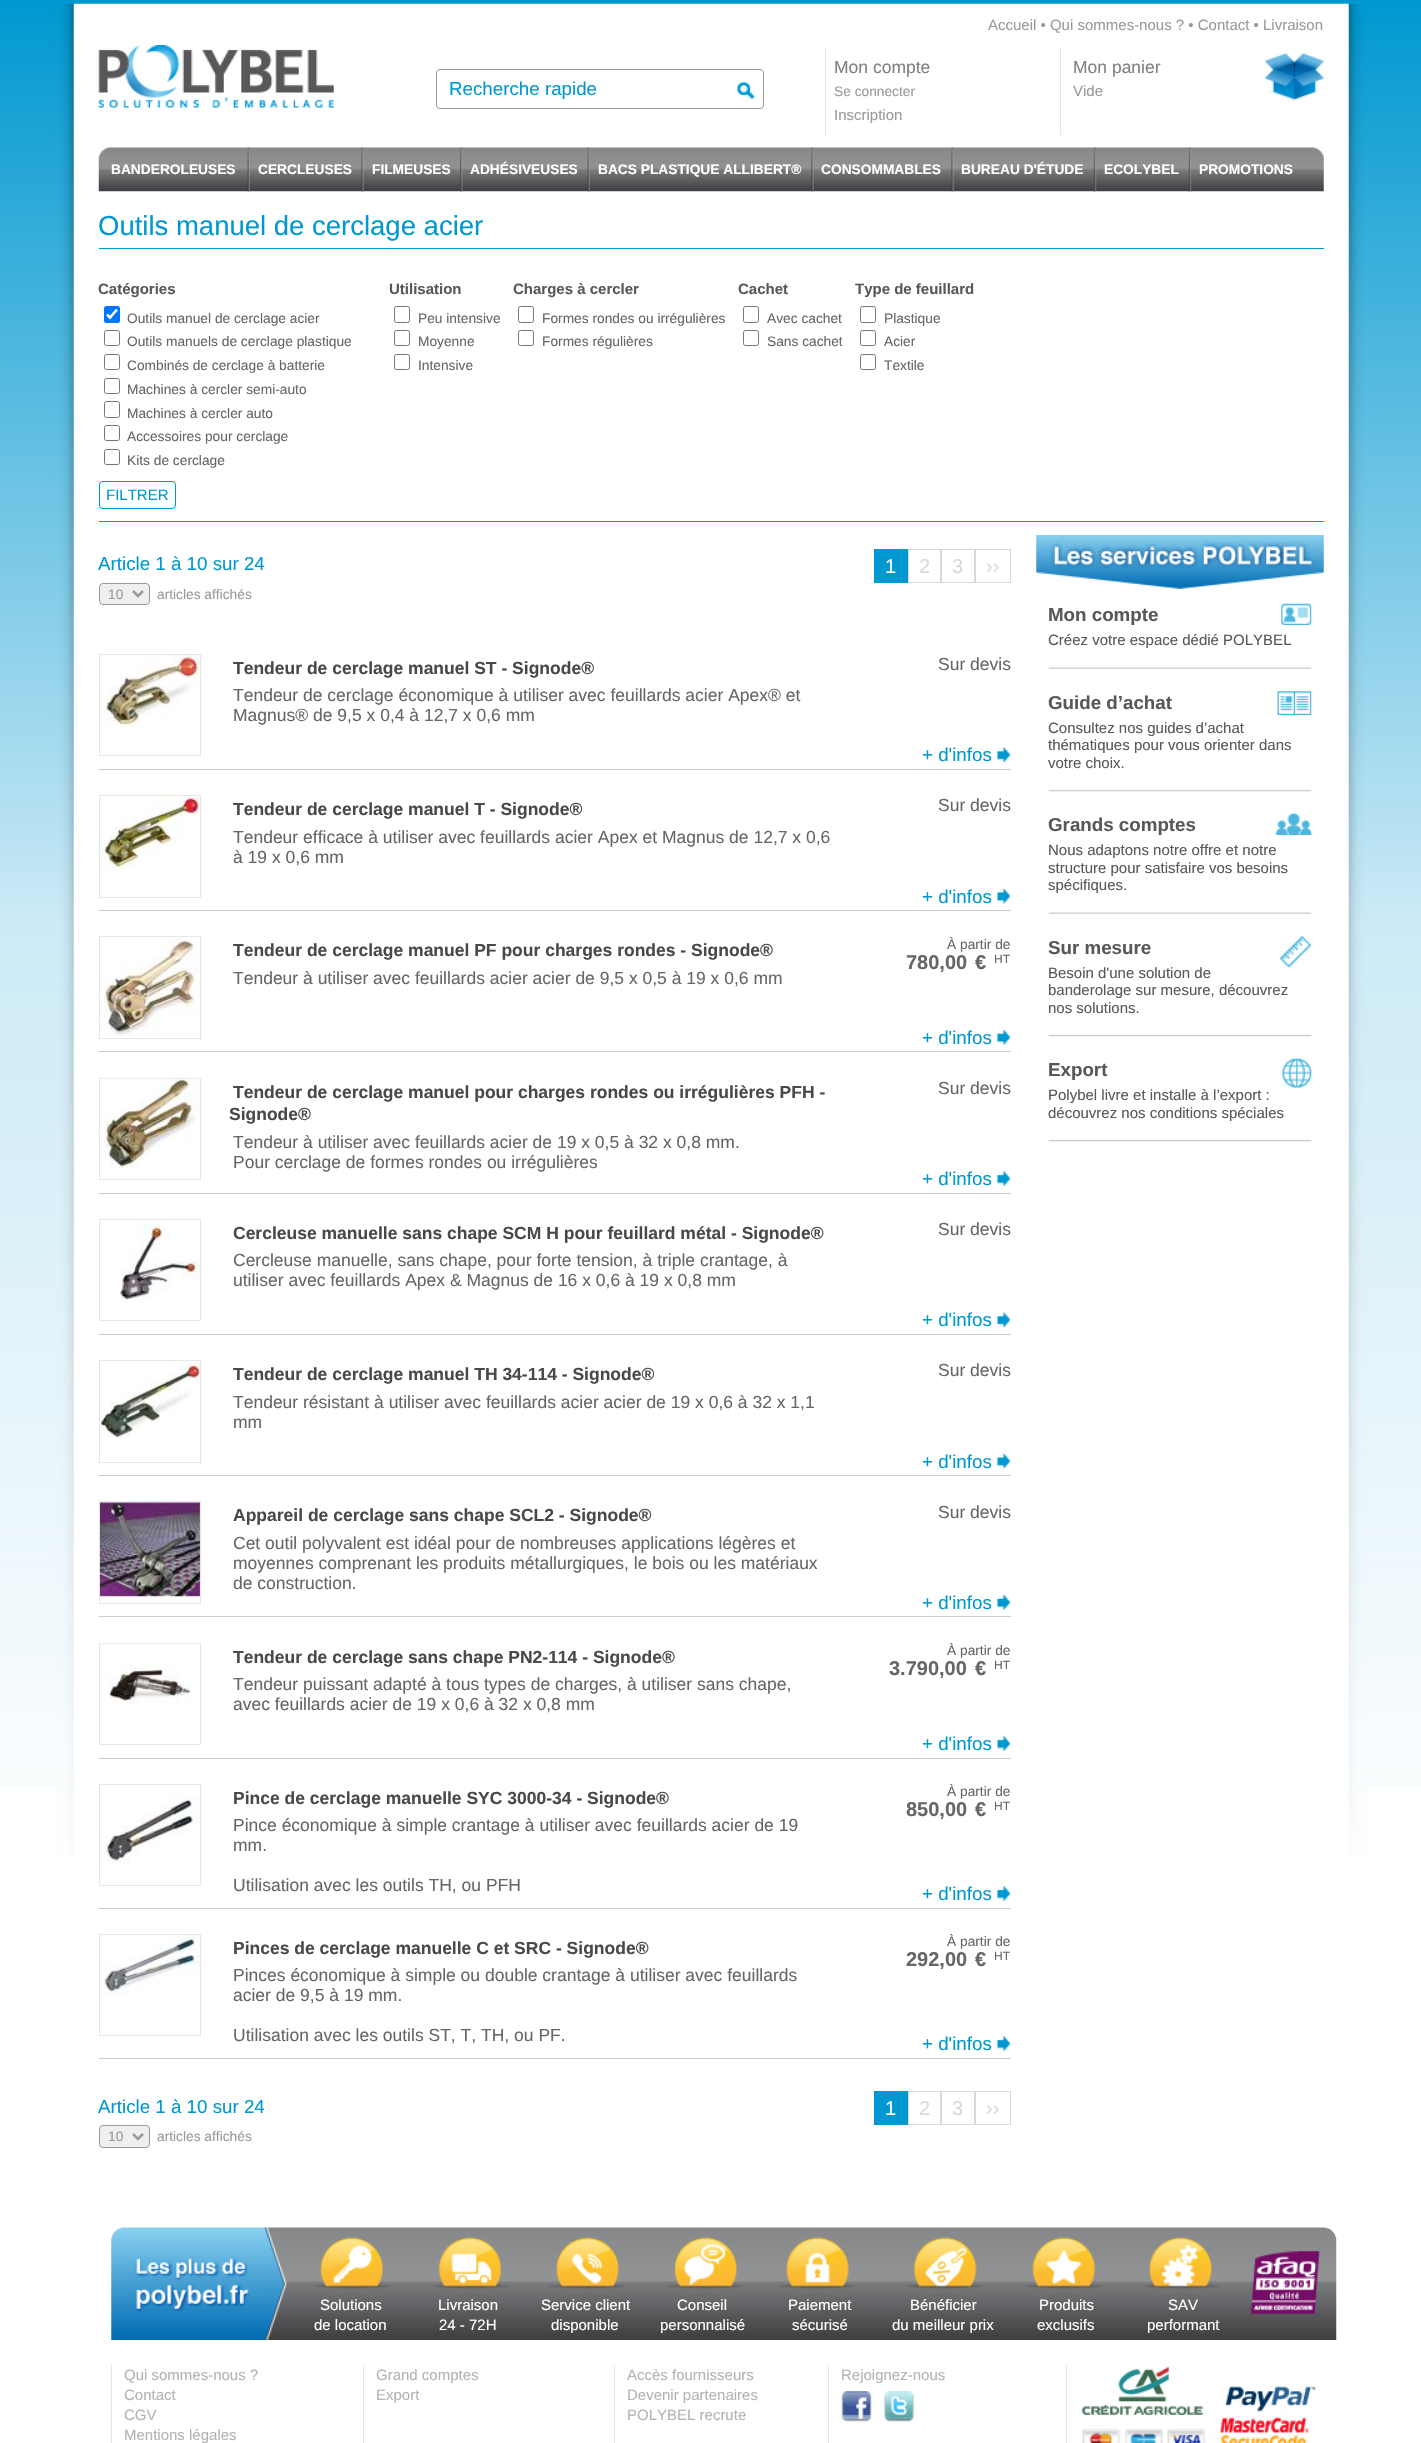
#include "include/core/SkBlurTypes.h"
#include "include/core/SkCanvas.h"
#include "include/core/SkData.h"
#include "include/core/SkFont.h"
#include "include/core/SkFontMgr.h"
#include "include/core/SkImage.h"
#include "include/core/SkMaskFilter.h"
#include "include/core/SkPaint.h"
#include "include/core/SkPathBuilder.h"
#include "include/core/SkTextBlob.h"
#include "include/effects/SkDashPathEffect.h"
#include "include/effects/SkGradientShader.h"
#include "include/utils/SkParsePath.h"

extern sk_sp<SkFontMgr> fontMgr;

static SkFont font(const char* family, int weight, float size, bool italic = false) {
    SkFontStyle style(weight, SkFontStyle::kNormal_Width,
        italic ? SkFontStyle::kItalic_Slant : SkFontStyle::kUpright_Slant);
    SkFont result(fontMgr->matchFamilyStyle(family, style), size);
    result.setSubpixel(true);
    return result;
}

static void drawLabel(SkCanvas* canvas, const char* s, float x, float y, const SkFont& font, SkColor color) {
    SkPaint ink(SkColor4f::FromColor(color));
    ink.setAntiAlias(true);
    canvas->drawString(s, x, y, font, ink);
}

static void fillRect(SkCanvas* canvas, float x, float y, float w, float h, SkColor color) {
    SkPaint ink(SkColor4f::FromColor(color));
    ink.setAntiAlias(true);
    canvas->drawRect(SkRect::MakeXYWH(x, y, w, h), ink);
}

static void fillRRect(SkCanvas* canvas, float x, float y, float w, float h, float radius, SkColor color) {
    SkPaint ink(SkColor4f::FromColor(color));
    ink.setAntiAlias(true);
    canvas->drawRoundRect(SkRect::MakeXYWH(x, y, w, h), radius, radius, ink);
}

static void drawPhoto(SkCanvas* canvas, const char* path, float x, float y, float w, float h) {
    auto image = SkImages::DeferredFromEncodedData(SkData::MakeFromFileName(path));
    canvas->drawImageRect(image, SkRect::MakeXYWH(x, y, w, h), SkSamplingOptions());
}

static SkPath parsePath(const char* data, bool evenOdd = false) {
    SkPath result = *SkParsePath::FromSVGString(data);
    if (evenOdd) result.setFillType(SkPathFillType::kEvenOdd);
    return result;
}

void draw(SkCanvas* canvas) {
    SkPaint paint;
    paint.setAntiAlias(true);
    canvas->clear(0xFFFFFFFF);
    drawPhoto(canvas, "assets/img1.png", 0, 0, 1421, 1790);
    drawPhoto(canvas, "assets/img2.png", 55, 3, 1312, 1853);
    SkFont font1 = font("Liberation Sans", 400, 15);
    drawLabel(canvas, "Accueil • Qui sommes-nous ? • Contact • Livraison", 988, 30, font1, 0xFF999999);
    drawPhoto(canvas, "assets/img3.png", 98, 45, 236, 63);
    paint.setStroke(true);
    paint.setStrokeWidth(1);
    paint.setColor(0xFF999999);
    canvas->drawRoundRect(SkRect::MakeXYWH(436.5f, 69.5f, 327, 39), 3.5f, 3.5f, paint);
    SkFont font2 = font("Liberation Sans", 400, 18.75f);
    drawLabel(canvas, "Recherche rapide", 449, 95, font2, 0xFF0098D0);
    drawPhoto(canvas, "assets/img4.png", 737, 82, 18, 18);
    fillRect(canvas, 825, 48, 1, 87, 0xFFE6E6E6);
    SkFont font3 = font("Liberation Sans", 400, 17.5f);
    drawLabel(canvas, "Mon compte", 834, 73, font3, 0xFF808080);
    SkFont font4 = font("Liberation Sans", 400, 13.75f);
    drawLabel(canvas, "Se connecter", 834, 96, font4, 0xFF999999);
    drawLabel(canvas, "Inscription", 834, 120, font1, 0xFF999999);
    fillRect(canvas, 1060, 48, 1, 87, 0xFFE6E6E6);
    drawPhoto(canvas, "assets/img5.png", 1265, 53, 59, 48);
    drawLabel(canvas, "Mon panier", 1073, 73, font3, 0xFF808080);
    drawLabel(canvas, "Vide", 1073, 96, font1, 0xFF999999);
    drawPhoto(canvas, "assets/img6.png", 98, 147, 1226, 45);
    SkFont font5 = font("Liberation Sans", 700, 13.75f);
    drawLabel(canvas, "BANDEROLEUSES", 111, 174, font5, 0xFFFFFFFF);
    drawPhoto(canvas, "assets/img7.png", 247, 147, 3, 45);
    drawLabel(canvas, "CERCLEUSES", 258, 174, font5, 0xFFFFFFFF);
    drawPhoto(canvas, "assets/img8.png", 361, 147, 3, 45);
    drawLabel(canvas, "FILMEUSES", 372, 174, font5, 0xFFFFFFFF);
    drawPhoto(canvas, "assets/img9.png", 460, 147, 3, 45);
    drawLabel(canvas, "ADHÉSIVEUSES", 470, 174, font5, 0xFFFFFFFF);
    drawPhoto(canvas, "assets/img7.png", 587, 147, 3, 45);
    drawLabel(canvas, "BACS PLASTIQUE ALLIBERT®", 598, 174, font5, 0xFFFFFFFF);
    drawPhoto(canvas, "assets/img8.png", 811, 147, 3, 45);
    drawLabel(canvas, "CONSOMMABLES", 821, 174, font5, 0xFFFFFFFF);
    drawPhoto(canvas, "assets/img8.png", 951, 147, 3, 45);
    drawLabel(canvas, "BUREAU D'ÉTUDE", 961, 174, font5, 0xFFFFFFFF);
    drawPhoto(canvas, "assets/img10.png", 1093, 147, 4, 45);
    drawLabel(canvas, "ECOLYBEL", 1104, 174, font5, 0xFFFFFFFF);
    drawPhoto(canvas, "assets/img10.png", 1188, 147, 4, 45);
    drawLabel(canvas, "PROMOTIONS", 1199, 174, font5, 0xFFFFFFFF);
    fillRect(canvas, 99, 248, 1225, 1, 0xFF0098D0);
    SkFont font6 = font("Liberation Sans", 400, 27.5f);
    drawLabel(canvas, "Outils manuel de cerclage acier", 98, 235, font6, 0xFF0098D0);
    fillRect(canvas, 99, 521, 1225, 1, 0xFF0098D0);
    SkFont font7 = font("Liberation Sans", 700, 15);
    drawLabel(canvas, "Catégories", 98, 294, font7, 0xFF585858);
    fillRRect(canvas, 104, 306, 16, 17, 2.5f, 0xFF0075FF);
    paint.setStrokeWidth(2.6f);
    paint.setColor(0xFFFFFFFF);
    canvas->drawPath(parsePath("M107 314.5L110 317.5L117 309.5"), paint);
    drawLabel(canvas, "Outils manuel de cerclage acier", 127, 323, font4, 0xFF666666);
    paint.setStrokeWidth(1);
    paint.setColor(0xFF767676);
    canvas->drawRoundRect(SkRect::MakeXYWH(104.5f, 330.5f, 15, 15), 2, 2, paint);
    drawLabel(canvas, "Outils manuels de cerclage plastique", 127, 346, font4, 0xFF666666);
    canvas->drawRoundRect(SkRect::MakeXYWH(104.5f, 354.5f, 15, 15), 2, 2, paint);
    drawLabel(canvas, "Combinés de cerclage à batterie", 127, 370, font4, 0xFF666666);
    canvas->drawRoundRect(SkRect::MakeXYWH(104.5f, 378.5f, 15, 15), 2, 2, paint);
    drawLabel(canvas, "Machines à cercler semi-auto", 127, 394, font4, 0xFF666666);
    canvas->drawRoundRect(SkRect::MakeXYWH(104.5f, 401.5f, 15, 16), 2, 2, paint);
    drawLabel(canvas, "Machines à cercler auto", 127, 418, font4, 0xFF666666);
    canvas->drawRoundRect(SkRect::MakeXYWH(104.5f, 425.5f, 15, 15), 2, 2, paint);
    drawLabel(canvas, "Accessoires pour cerclage", 127, 441, font4, 0xFF666666);
    canvas->drawRoundRect(SkRect::MakeXYWH(104.5f, 449.5f, 15, 15), 2, 2, paint);
    drawLabel(canvas, "Kits de cerclage", 127, 465, font4, 0xFF666666);
    drawLabel(canvas, "Utilisation", 389, 294, font7, 0xFF585858);
    canvas->drawRoundRect(SkRect::MakeXYWH(394.5f, 306.5f, 15, 16), 2, 2, paint);
    drawLabel(canvas, "Peu intensive", 418, 323, font4, 0xFF666666);
    canvas->drawRoundRect(SkRect::MakeXYWH(394.5f, 330.5f, 15, 15), 2, 2, paint);
    drawLabel(canvas, "Moyenne", 418, 346, font4, 0xFF666666);
    canvas->drawRoundRect(SkRect::MakeXYWH(394.5f, 354.5f, 15, 15), 2, 2, paint);
    drawLabel(canvas, "Intensive", 418, 370, font4, 0xFF666666);
    drawLabel(canvas, "Charges à cercler", 513, 294, font7, 0xFF585858);
    canvas->drawRoundRect(SkRect::MakeXYWH(518.5f, 306.5f, 15, 16), 2, 2, paint);
    drawLabel(canvas, "Formes rondes ou irrégulières", 542, 323, font4, 0xFF666666);
    canvas->drawRoundRect(SkRect::MakeXYWH(518.5f, 330.5f, 15, 15), 2, 2, paint);
    drawLabel(canvas, "Formes régulières", 542, 346, font4, 0xFF666666);
    drawLabel(canvas, "Cachet", 738, 294, font7, 0xFF585858);
    canvas->drawRoundRect(SkRect::MakeXYWH(743.5f, 306.5f, 15, 16), 2, 2, paint);
    drawLabel(canvas, "Avec cachet", 767, 323, font4, 0xFF666666);
    canvas->drawRoundRect(SkRect::MakeXYWH(743.5f, 330.5f, 15, 15), 2, 2, paint);
    drawLabel(canvas, "Sans cachet", 767, 346, font4, 0xFF666666);
    drawLabel(canvas, "Type de feuillard", 855, 294, font7, 0xFF585858);
    canvas->drawRoundRect(SkRect::MakeXYWH(860.5f, 306.5f, 15, 16), 2, 2, paint);
    drawLabel(canvas, "Plastique", 884, 323, font4, 0xFF666666);
    canvas->drawRoundRect(SkRect::MakeXYWH(860.5f, 330.5f, 15, 15), 2, 2, paint);
    drawLabel(canvas, "Acier", 884, 346, font4, 0xFF666666);
    canvas->drawRoundRect(SkRect::MakeXYWH(860.5f, 354.5f, 15, 15), 2, 2, paint);
    drawLabel(canvas, "Textile", 884, 370, font4, 0xFF666666);
    paint.setColor(0xFF0098D0);
    canvas->drawRoundRect(SkRect::MakeXYWH(99.5f, 481.5f, 76, 27), 3.5f, 3.5f, paint);
    drawLabel(canvas, "FILTRER", 106, 500, font1, 0xFF0098D0);
    drawLabel(canvas, "Article 1 à 10 sur 24", 98, 570, font2, 0xFF0098D0);
    fillRect(canvas, 874, 549, 34, 34, 0xFF0098D0);
    SkFont font8 = font("Liberation Sans", 400, 20);
    drawLabel(canvas, "1", 885, 573, font8, 0xFFFFFFFF);
    paint.setColor(0xFFD9D9D9);
    canvas->drawRect(SkRect::MakeXYWH(908.5f, 549.5f, 32, 33), paint);
    drawLabel(canvas, "2", 919, 573, font8, 0xFFD9D9D9);
    canvas->drawRect(SkRect::MakeXYWH(941.5f, 549.5f, 33, 33), paint);
    drawLabel(canvas, "3", 952, 573, font8, 0xFFD9D9D9);
    canvas->drawRect(SkRect::MakeXYWH(975.5f, 549.5f, 35, 33), paint);
    drawLabel(canvas, "››", 986, 573, font8, 0xFFD9D9D9);
    paint.setStroke(false);
    paint.setColor(0xFFEFEFEF);
    canvas->drawRoundRect(SkRect::MakeXYWH(99.5f, 583.5f, 50, 21), 3.5f, 3.5f, paint);
    paint.setStroke(true);
    paint.setColor(0xFF999999);
    canvas->drawRoundRect(SkRect::MakeXYWH(99.5f, 583.5f, 50, 21), 3.5f, 3.5f, paint);
    paint.setStrokeWidth(2.5f);
    canvas->drawPath(parsePath("M133 591L138 596L143 591"), paint);
    drawLabel(canvas, "10", 108, 599, font4, 0xFF999999);
    drawLabel(canvas, "articles affichés", 157, 599, font4, 0xFF999999);
    fillRect(canvas, 99, 769, 912, 1, 0xFFCCCCCC);
    paint.setStrokeWidth(1);
    paint.setColor(0xFFE6E6E6);
    canvas->drawRect(SkRect::MakeXYWH(99.5f, 654.5f, 101, 101), paint);
    drawPhoto(canvas, "assets/img11.png", 100, 655, 100, 72);
    SkFont font9 = font("Liberation Sans", 700, 17.5f);
    drawLabel(canvas, "Tendeur de cerclage manuel ST - Signode®", 233, 674, font9, 0xFF494949);
    drawLabel(canvas, "Tendeur de cerclage économique à utiliser avec feuillards acier Apex® et", 233, 701, font3, 0xFF666666);
    drawLabel(canvas, "Magnus® de 9,5 x 0,4 à 12,7 x 0,6 mm", 233, 721, font3, 0xFF666666);
    drawLabel(canvas, "Sur devis", 938, 670, font3, 0xFF666666);
    drawLabel(canvas, "+ d'infos", 922, 761, font2, 0xFF0098D0);
    drawPhoto(canvas, "assets/img12.png", 997, 747, 14, 16);
    fillRect(canvas, 99, 910, 912, 1, 0xFFCCCCCC);
    canvas->drawRect(SkRect::MakeXYWH(99.5f, 795.5f, 101, 102), paint);
    drawPhoto(canvas, "assets/img13.png", 100, 796, 100, 73);
    drawLabel(canvas, "Tendeur de cerclage manuel T - Signode®", 233, 815, font9, 0xFF494949);
    drawLabel(canvas, "Tendeur efficace à utiliser avec feuillards acier Apex et Magnus de 12,7 x 0,6", 233, 843, font3, 0xFF666666);
    drawLabel(canvas, "à 19 x 0,6 mm", 233, 863, font3, 0xFF666666);
    drawLabel(canvas, "Sur devis", 938, 811, font3, 0xFF666666);
    drawLabel(canvas, "+ d'infos", 922, 903, font2, 0xFF0098D0);
    drawPhoto(canvas, "assets/img14.png", 997, 888, 14, 16);
    fillRect(canvas, 99, 1051, 912, 1, 0xFFCCCCCC);
    canvas->drawRect(SkRect::MakeXYWH(99.5f, 936.5f, 101, 102), paint);
    drawPhoto(canvas, "assets/img15.png", 100, 937, 100, 99);
    drawLabel(canvas, "Tendeur de cerclage manuel PF pour charges rondes - Signode®", 233, 956, font9, 0xFF494949);
    drawLabel(canvas, "Tendeur à utiliser avec feuillards acier acier de 9,5 x 0,5 à 19 x 0,6 mm", 233, 984, font3, 0xFF666666);
    drawLabel(canvas, "À partir de", 947, 949, font4, 0xFF666666);
    SkFont font10 = font("Liberation Sans", 700, 20);
    drawLabel(canvas, "780,00", 906, 969, font10, 0xFF666666);
    drawLabel(canvas, "€", 975, 969, font10, 0xFF666666);
    SkFont font11 = font("Liberation Sans", 400, 12);
    drawLabel(canvas, "HT", 994, 963, font11, 0xFF666666);
    drawLabel(canvas, "+ d'infos", 922, 1044, font2, 0xFF0098D0);
    drawPhoto(canvas, "assets/img16.png", 997, 1030, 14, 15);
    fillRect(canvas, 99, 1193, 912, 1, 0xFFCCCCCC);
    canvas->drawRect(SkRect::MakeXYWH(99.5f, 1078.5f, 101, 101), paint);
    drawPhoto(canvas, "assets/img17.png", 100, 1078, 100, 91);
    drawLabel(canvas, "Tendeur de cerclage manuel pour charges rondes ou irrégulières PFH -", 233, 1098, font9, 0xFF494949);
    drawLabel(canvas, "Signode®", 229, 1120, font9, 0xFF494949);
    drawLabel(canvas, "Tendeur à utiliser avec feuillards acier de 19 x 0,5 à 32 x 0,8 mm.", 233, 1148, font3, 0xFF666666);
    drawLabel(canvas, "Pour cerclage de formes rondes ou irrégulières", 233, 1168, font3, 0xFF666666);
    drawLabel(canvas, "Sur devis", 938, 1094, font3, 0xFF666666);
    drawLabel(canvas, "+ d'infos", 922, 1185, font2, 0xFF0098D0);
    drawPhoto(canvas, "assets/img18.png", 997, 1171, 14, 16);
    fillRect(canvas, 99, 1334, 912, 1, 0xFFCCCCCC);
    canvas->drawRect(SkRect::MakeXYWH(99.5f, 1219.5f, 101, 101), paint);
    drawPhoto(canvas, "assets/img19.png", 119, 1220, 81, 80);
    drawLabel(canvas, "Cercleuse manuelle sans chape SCM H pour feuillard métal - Signode®", 233, 1239, font9, 0xFF494949);
    drawLabel(canvas, "Cercleuse manuelle, sans chape, pour forte tension, à triple crantage, à", 233, 1266, font3, 0xFF666666);
    drawLabel(canvas, "utiliser avec feuillards Apex & Magnus de 16 x 0,6 à 19 x 0,8 mm", 233, 1286, font3, 0xFF666666);
    drawLabel(canvas, "Sur devis", 938, 1235, font3, 0xFF666666);
    drawLabel(canvas, "+ d'infos", 922, 1326, font2, 0xFF0098D0);
    drawPhoto(canvas, "assets/img12.png", 997, 1312, 14, 16);
    fillRect(canvas, 99, 1475, 912, 1, 0xFFCCCCCC);
    canvas->drawRect(SkRect::MakeXYWH(99.5f, 1360.5f, 101, 102), paint);
    drawPhoto(canvas, "assets/img20.png", 100, 1361, 100, 78);
    drawLabel(canvas, "Tendeur de cerclage manuel TH 34-114 - Signode®", 233, 1380, font9, 0xFF494949);
    drawLabel(canvas, "Tendeur résistant à utiliser avec feuillards acier acier de 19 x 0,6 à 32 x 1,1", 233, 1408, font3, 0xFF666666);
    drawLabel(canvas, "mm", 233, 1428, font3, 0xFF666666);
    drawLabel(canvas, "Sur devis", 938, 1376, font3, 0xFF666666);
    drawLabel(canvas, "+ d'infos", 922, 1468, font2, 0xFF0098D0);
    drawPhoto(canvas, "assets/img14.png", 997, 1453, 14, 16);
    fillRect(canvas, 99, 1616, 912, 1, 0xFFCCCCCC);
    canvas->drawRect(SkRect::MakeXYWH(99.5f, 1501.5f, 101, 102), paint);
    drawPhoto(canvas, "assets/img21.png", 100, 1502, 100, 95);
    drawLabel(canvas, "Appareil de cerclage sans chape SCL2 - Signode®", 233, 1521, font9, 0xFF494949);
    drawLabel(canvas, "Cet outil polyvalent est idéal pour de nombreuses applications légères et", 233, 1549, font3, 0xFF666666);
    drawLabel(canvas, "moyennes comprenant les produits métallurgiques, le bois ou les matériaux", 233, 1569, font3, 0xFF666666);
    drawLabel(canvas, "de construction.", 233, 1589, font3, 0xFF666666);
    drawLabel(canvas, "Sur devis", 938, 1518, font3, 0xFF666666);
    drawLabel(canvas, "+ d'infos", 922, 1609, font2, 0xFF0098D0);
    drawPhoto(canvas, "assets/img16.png", 997, 1595, 14, 15);
    fillRect(canvas, 99, 1758, 912, 1, 0xFFCCCCCC);
    canvas->drawRect(SkRect::MakeXYWH(99.5f, 1643.5f, 101, 101), paint);
    drawPhoto(canvas, "assets/img22.png", 100, 1643, 100, 61);
    drawLabel(canvas, "Tendeur de cerclage sans chape PN2-114 - Signode®", 233, 1663, font9, 0xFF494949);
    drawLabel(canvas, "Tendeur puissant adapté à tous types de charges, à utiliser sans chape,", 233, 1690, font3, 0xFF666666);
    drawLabel(canvas, "avec feuillards acier de 19 x 0,6 à 32 x 0,8 mm", 233, 1710, font3, 0xFF666666);
    drawLabel(canvas, "À partir de", 947, 1655, font4, 0xFF666666);
    drawLabel(canvas, "3.790,00", 889, 1675, font10, 0xFF666666);
    drawLabel(canvas, "€", 975, 1675, font10, 0xFF666666);
    drawLabel(canvas, "HT", 994, 1669, font11, 0xFF666666);
    drawLabel(canvas, "+ d'infos", 922, 1750, font2, 0xFF0098D0);
    drawPhoto(canvas, "assets/img23.png", 997, 1736, 14, 16);
    fillRect(canvas, 99, 1908, 912, 1, 0xFFCCCCCC);
    canvas->drawRect(SkRect::MakeXYWH(99.5f, 1784.5f, 101, 101), paint);
    drawPhoto(canvas, "assets/img24.png", 100, 1795, 100, 70);
    drawLabel(canvas, "Pince de cerclage manuelle SYC 3000-34 - Signode®", 233, 1804, font9, 0xFF494949);
    drawLabel(canvas, "Pince économique à simple crantage à utiliser avec feuillards acier de 19", 233, 1831, font3, 0xFF666666);
    drawLabel(canvas, "mm.", 233, 1851, font3, 0xFF666666);
    drawLabel(canvas, "Utilisation avec les outils TH, ou PFH", 233, 1891, font3, 0xFF666666);
    drawLabel(canvas, "À partir de", 947, 1796, font4, 0xFF666666);
    drawLabel(canvas, "850,00", 906, 1816, font10, 0xFF666666);
    drawLabel(canvas, "€", 975, 1816, font10, 0xFF666666);
    drawLabel(canvas, "HT", 994, 1810, font11, 0xFF666666);
    drawLabel(canvas, "+ d'infos", 922, 1900, font2, 0xFF0098D0);
    drawPhoto(canvas, "assets/img23.png", 997, 1886, 14, 16);
    fillRect(canvas, 99, 2058, 912, 1, 0xFFCCCCCC);
    canvas->drawRect(SkRect::MakeXYWH(99.5f, 1934.5f, 101, 101), paint);
    drawPhoto(canvas, "assets/img25.png", 100, 1935, 100, 60);
    drawLabel(canvas, "Pinces de cerclage manuelle C et SRC - Signode®", 233, 1954, font9, 0xFF494949);
    drawLabel(canvas, "Pinces économique à simple ou double crantage à utiliser avec feuillards", 233, 1981, font3, 0xFF666666);
    drawLabel(canvas, "acier de 9,5 à 19 mm.", 233, 2001, font3, 0xFF666666);
    drawLabel(canvas, "Utilisation avec les outils ST, T, TH, ou PF.", 233, 2041, font3, 0xFF666666);
    drawLabel(canvas, "À partir de", 947, 1946, font4, 0xFF666666);
    drawLabel(canvas, "292,00", 906, 1966, font10, 0xFF666666);
    drawLabel(canvas, "€", 975, 1966, font10, 0xFF666666);
    drawLabel(canvas, "HT", 994, 1960, font11, 0xFF666666);
    drawLabel(canvas, "+ d'infos", 922, 2050, font2, 0xFF0098D0);
    drawPhoto(canvas, "assets/img23.png", 997, 2036, 14, 16);
    drawLabel(canvas, "Article 1 à 10 sur 24", 98, 2113, font2, 0xFF0098D0);
    fillRect(canvas, 874, 2091, 34, 34, 0xFF0098D0);
    drawLabel(canvas, "1", 885, 2115, font8, 0xFFFFFFFF);
    paint.setColor(0xFFD9D9D9);
    canvas->drawRect(SkRect::MakeXYWH(908.5f, 2091.5f, 32, 33), paint);
    drawLabel(canvas, "2", 919, 2115, font8, 0xFFD9D9D9);
    canvas->drawRect(SkRect::MakeXYWH(941.5f, 2091.5f, 33, 33), paint);
    drawLabel(canvas, "3", 952, 2115, font8, 0xFFD9D9D9);
    canvas->drawRect(SkRect::MakeXYWH(975.5f, 2091.5f, 35, 33), paint);
    drawLabel(canvas, "››", 986, 2115, font8, 0xFFD9D9D9);
    paint.setStroke(false);
    paint.setColor(0xFFEFEFEF);
    canvas->drawRoundRect(SkRect::MakeXYWH(99.5f, 2125.5f, 50, 22), 3.5f, 3.5f, paint);
    paint.setStroke(true);
    paint.setColor(0xFF999999);
    canvas->drawRoundRect(SkRect::MakeXYWH(99.5f, 2125.5f, 50, 22), 3.5f, 3.5f, paint);
    paint.setStrokeWidth(2.5f);
    canvas->drawPath(parsePath("M133 2134L138 2139L143 2134"), paint);
    drawLabel(canvas, "10", 108, 2141, font4, 0xFF999999);
    drawLabel(canvas, "articles affichés", 157, 2141, font4, 0xFF999999);
    drawPhoto(canvas, "assets/img26.png", 1036, 535, 288, 54);
    SkFont font12 = font("Liberation Sans", 700, 18.75f);
    drawLabel(canvas, "Mon compte", 1048, 621, font12, 0xFF585858);
    drawPhoto(canvas, "assets/img27.png", 1281, 603, 31, 22);
    drawLabel(canvas, "Créez votre espace dédié POLYBEL", 1048, 645, font1, 0xFF585858);
    drawPhoto(canvas, "assets/img28.png", 1048, 667, 264, 2);
    drawLabel(canvas, "Guide d’achat", 1048, 709, font12, 0xFF585858);
    drawPhoto(canvas, "assets/img29.png", 1277, 691, 35, 24);
    drawLabel(canvas, "Consultez nos guides d’achat", 1048, 733, font1, 0xFF585858);
    drawLabel(canvas, "thématiques pour vous orienter dans", 1048, 750, font1, 0xFF585858);
    drawLabel(canvas, "votre choix.", 1048, 768, font1, 0xFF585858);
    drawPhoto(canvas, "assets/img30.png", 1048, 790, 264, 2);
    drawLabel(canvas, "Grands comptes", 1048, 831, font12, 0xFF585858);
    drawPhoto(canvas, "assets/img31.png", 1276, 813, 36, 22);
    drawLabel(canvas, "Nous adaptons notre offre et notre", 1048, 855, font1, 0xFF585858);
    drawLabel(canvas, "structure pour satisfaire vos besoins", 1048, 873, font1, 0xFF585858);
    drawLabel(canvas, "spécifiques.", 1048, 890, font1, 0xFF585858);
    drawPhoto(canvas, "assets/img28.png", 1048, 912, 264, 2);
    drawLabel(canvas, "Sur mesure", 1048, 954, font12, 0xFF585858);
    drawPhoto(canvas, "assets/img32.png", 1279, 936, 33, 32);
    drawLabel(canvas, "Besoin d'une solution de", 1048, 978, font1, 0xFF585858);
    drawLabel(canvas, "banderolage sur mesure, découvrez", 1048, 995, font1, 0xFF585858);
    drawLabel(canvas, "nos solutions.", 1048, 1013, font1, 0xFF585858);
    drawPhoto(canvas, "assets/img30.png", 1048, 1035, 264, 2);
    drawLabel(canvas, "Export", 1048, 1076, font12, 0xFF585858);
    drawPhoto(canvas, "assets/img33.png", 1282, 1058, 30, 30);
    drawLabel(canvas, "Polybel livre et installe à l’export :", 1048, 1100, font1, 0xFF585858);
    drawLabel(canvas, "découvrez nos conditions spéciales", 1048, 1118, font1, 0xFF585858);
    drawPhoto(canvas, "assets/img30.png", 1048, 1140, 264, 2);
    drawPhoto(canvas, "assets/img34.png", 111, 2227, 1226, 113);
    drawPhoto(canvas, "assets/img35.png", 313, 2237, 79, 52);
    drawPhoto(canvas, "assets/img36.png", 431, 2237, 79, 52);
    drawPhoto(canvas, "assets/img37.png", 548, 2237, 79, 52);
    drawPhoto(canvas, "assets/img38.png", 666, 2237, 79, 52);
    drawPhoto(canvas, "assets/img39.png", 778, 2237, 79, 52);
    drawPhoto(canvas, "assets/img40.png", 906, 2237, 79, 52);
    drawPhoto(canvas, "assets/img41.png", 1025, 2237, 78, 52);
    drawPhoto(canvas, "assets/img42.png", 1142, 2237, 79, 52);
    drawPhoto(canvas, "assets/img43.png", 1251, 2251, 69, 63);
    drawLabel(canvas, "Solutions", 320, 2310, font1, 0xFFFFFFFF);
    drawLabel(canvas, "de location", 314, 2330, font1, 0xFFFFFFFF);
    drawLabel(canvas, "Livraison", 438, 2310, font1, 0xFFFFFFFF);
    drawLabel(canvas, "24 - 72H", 439, 2330, font1, 0xFFFFFFFF);
    drawLabel(canvas, "Service client", 541, 2310, font1, 0xFFFFFFFF);
    drawLabel(canvas, "disponible", 551, 2330, font1, 0xFFFFFFFF);
    drawLabel(canvas, "Conseil", 677, 2310, font1, 0xFFFFFFFF);
    drawLabel(canvas, "personnalisé", 660, 2330, font1, 0xFFFFFFFF);
    drawLabel(canvas, "Paiement", 788, 2310, font1, 0xFFFFFFFF);
    drawLabel(canvas, "sécurisé", 792, 2330, font1, 0xFFFFFFFF);
    drawLabel(canvas, "Bénéficier", 910, 2310, font1, 0xFFFFFFFF);
    drawLabel(canvas, "du meilleur prix", 892, 2330, font1, 0xFFFFFFFF);
    drawLabel(canvas, "Produits", 1039, 2310, font1, 0xFFFFFFFF);
    drawLabel(canvas, "exclusifs", 1037, 2330, font1, 0xFFFFFFFF);
    drawLabel(canvas, "SAV", 1168, 2310, font1, 0xFFFFFFFF);
    drawLabel(canvas, "performant", 1147, 2330, font1, 0xFFFFFFFF);
    fillRect(canvas, 111, 2365, 1, 78, 0xFFE6E6E6);
    drawLabel(canvas, "Qui sommes-nous ?", 124, 2380, font1, 0xFFB3B3B3);
    drawLabel(canvas, "Contact", 124, 2400, font1, 0xFFB3B3B3);
    drawLabel(canvas, "CGV", 124, 2420, font1, 0xFFB3B3B3);
    drawLabel(canvas, "Mentions légales", 124, 2440, font1, 0xFFB3B3B3);
    fillRect(canvas, 363, 2365, 1, 78, 0xFFE6E6E6);
    drawLabel(canvas, "Grand comptes", 376, 2380, font1, 0xFFB3B3B3);
    drawLabel(canvas, "Export", 376, 2400, font1, 0xFFB3B3B3);
    fillRect(canvas, 614, 2365, 1, 78, 0xFFE6E6E6);
    drawLabel(canvas, "Accès fournisseurs", 627, 2380, font1, 0xFFB3B3B3);
    drawLabel(canvas, "Devenir partenaires", 627, 2400, font1, 0xFFB3B3B3);
    drawLabel(canvas, "POLYBEL recrute", 627, 2420, font1, 0xFFB3B3B3);
    fillRect(canvas, 828, 2365, 1, 78, 0xFFE6E6E6);
    drawLabel(canvas, "Rejoignez-nous", 841, 2380, font1, 0xFFB3B3B3);
    drawPhoto(canvas, "assets/img44.png", 841, 2391, 31, 31);
    drawPhoto(canvas, "assets/img45.png", 883, 2391, 31, 31);
    fillRect(canvas, 1066, 2365, 1, 78, 0xFFE6E6E6);
    drawPhoto(canvas, "assets/img46.png", 1081, 2366, 123, 49);
    drawPhoto(canvas, "assets/img47.png", 1225, 2386, 92, 26);
    drawPhoto(canvas, "assets/img48.png", 1082, 2415, 227, 28);
}
